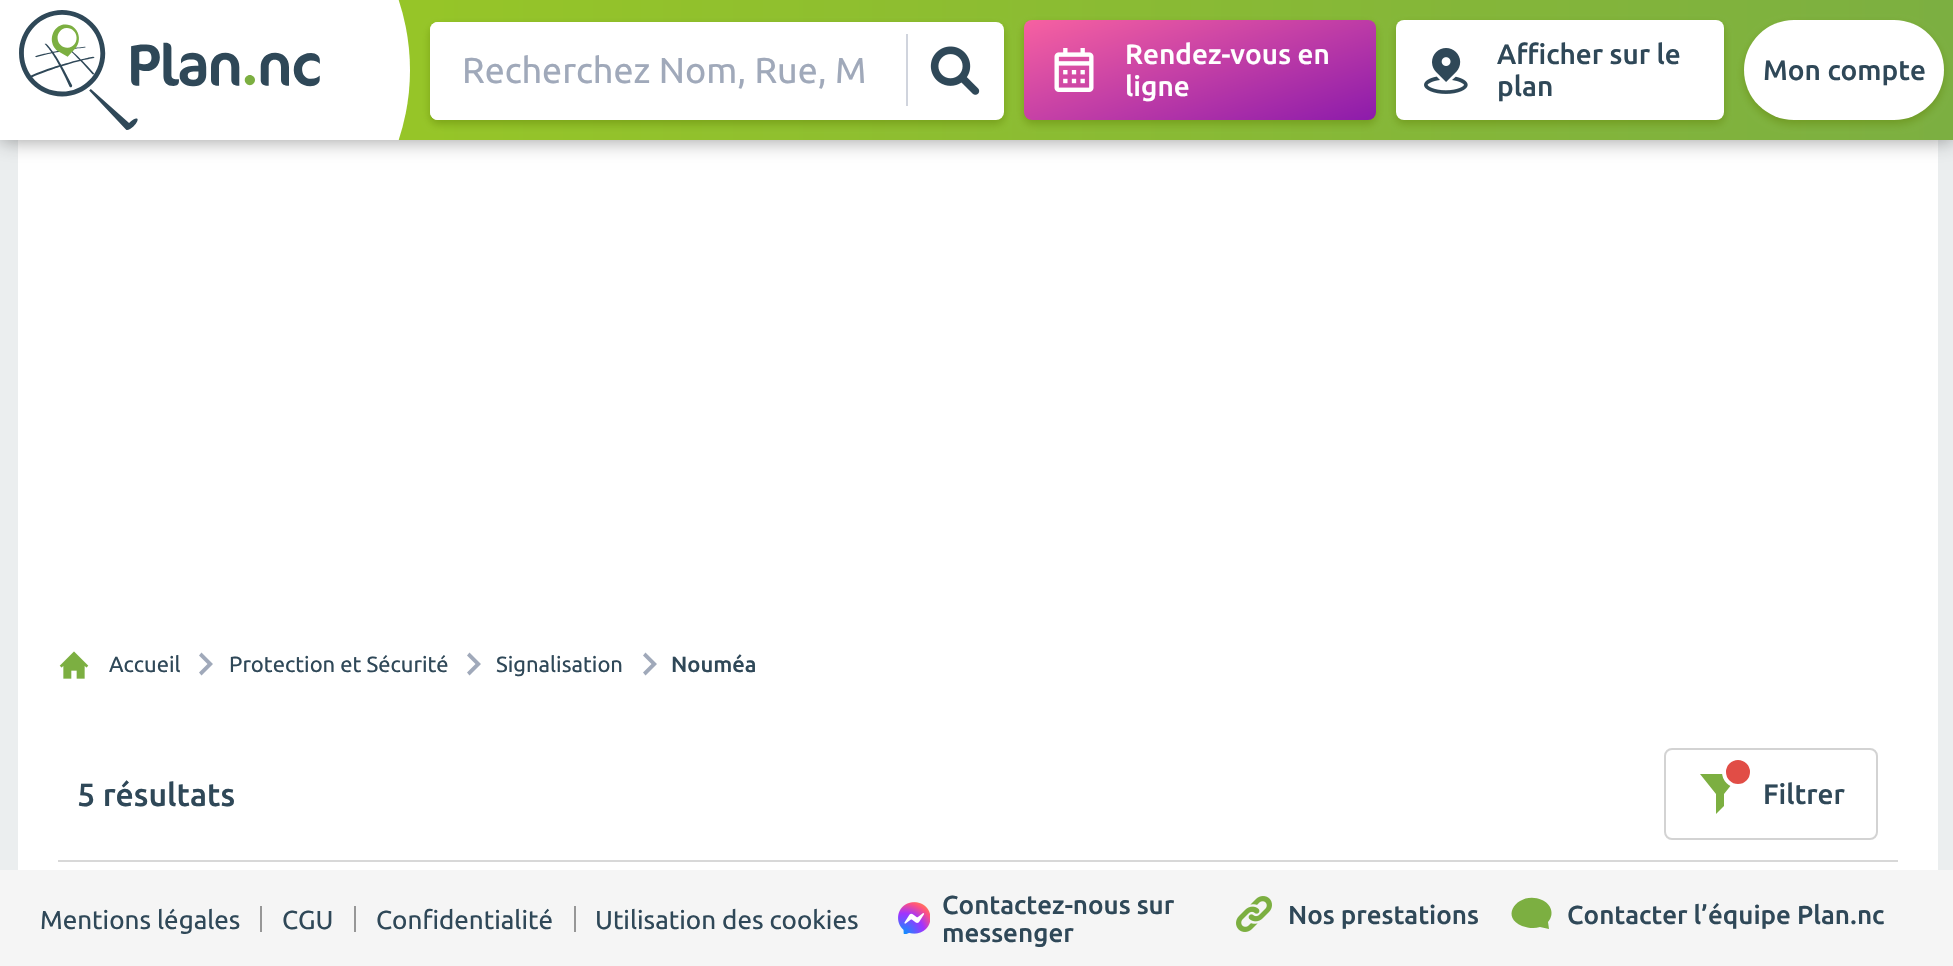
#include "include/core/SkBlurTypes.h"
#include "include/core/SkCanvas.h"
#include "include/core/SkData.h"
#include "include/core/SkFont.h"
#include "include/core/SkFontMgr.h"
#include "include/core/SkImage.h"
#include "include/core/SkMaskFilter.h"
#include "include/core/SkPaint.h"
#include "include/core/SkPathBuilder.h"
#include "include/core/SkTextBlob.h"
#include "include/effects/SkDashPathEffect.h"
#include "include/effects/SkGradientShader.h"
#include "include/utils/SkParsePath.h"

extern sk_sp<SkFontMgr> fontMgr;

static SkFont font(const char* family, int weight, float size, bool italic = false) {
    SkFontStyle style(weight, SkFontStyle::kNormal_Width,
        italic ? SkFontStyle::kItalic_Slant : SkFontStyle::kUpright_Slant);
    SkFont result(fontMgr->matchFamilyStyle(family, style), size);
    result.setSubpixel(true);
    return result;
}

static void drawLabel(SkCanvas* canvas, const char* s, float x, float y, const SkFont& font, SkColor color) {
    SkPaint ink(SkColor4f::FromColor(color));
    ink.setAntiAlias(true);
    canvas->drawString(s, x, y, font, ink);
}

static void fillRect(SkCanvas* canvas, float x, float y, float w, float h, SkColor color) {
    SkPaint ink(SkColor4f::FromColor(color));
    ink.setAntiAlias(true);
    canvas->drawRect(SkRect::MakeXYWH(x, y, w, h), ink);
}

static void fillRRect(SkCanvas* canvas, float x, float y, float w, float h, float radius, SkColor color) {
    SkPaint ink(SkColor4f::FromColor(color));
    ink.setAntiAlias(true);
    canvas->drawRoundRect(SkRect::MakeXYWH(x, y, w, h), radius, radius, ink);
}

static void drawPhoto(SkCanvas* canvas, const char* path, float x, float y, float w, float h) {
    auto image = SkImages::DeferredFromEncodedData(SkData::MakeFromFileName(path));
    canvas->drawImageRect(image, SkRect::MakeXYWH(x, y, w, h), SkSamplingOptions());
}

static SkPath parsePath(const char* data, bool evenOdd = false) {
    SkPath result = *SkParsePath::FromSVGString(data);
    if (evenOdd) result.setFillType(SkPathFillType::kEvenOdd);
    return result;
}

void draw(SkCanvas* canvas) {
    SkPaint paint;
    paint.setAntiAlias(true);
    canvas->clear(0xFFEBEEEF);
    fillRect(canvas, 18, 140, 1920, 730, 0xFFFFFFFF);
    paint.setColor(0x66000000);
    paint.setMaskFilter(SkMaskFilter::MakeBlur(kNormal_SkBlurStyle, 10));
    canvas->drawRect(SkRect::MakeXYWH(0, 0, 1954, 140), paint);
    paint.setMaskFilter(nullptr);
    {
        const SkColor colors[] = {0xFF9DCB21, 0xFF7CAF41};
        const float stops[] = {0, 1};
        const SkPoint ends[] = {{0, 70}, {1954, 70}};
        paint.setShader(SkGradientShader::MakeLinear(ends, colors, stops, 2, SkTileMode::kClamp));
        paint.setAlpha(255);
    }
    canvas->drawRect(SkRect::MakeXYWH(398, 0, 1555, 140), paint);
    drawPhoto(canvas, "assets/img1.png", 0, 0, 410, 140);
    paint.setShader(nullptr);
    paint.setColor(0x80608206);
    paint.setMaskFilter(SkMaskFilter::MakeBlur(kNormal_SkBlurStyle, 4));
    canvas->drawRoundRect(SkRect::MakeXYWH(430, 26, 574, 98), 8, 8, paint);
    paint.setMaskFilter(nullptr);
    fillRRect(canvas, 430, 22, 574, 98, 8, 0xFFFFFFFF);
    fillRRect(canvas, 430, 22, 474, 98, 8, 0xFFFFFFFF);
    SkFont font1 = font("Ubuntu", 400, 36);
    drawLabel(canvas, "Recherchez Nom, Rue, M", 462, 83, font1, 0xFFA0A9BA);
    fillRect(canvas, 906, 34, 2, 72, 0xFFD0D4DD);
    drawPhoto(canvas, "assets/img2.png", 930, 46, 50, 49);
    paint.setMaskFilter(SkMaskFilter::MakeBlur(kNormal_SkBlurStyle, 4));
    canvas->drawRoundRect(SkRect::MakeXYWH(1024, 24, 352, 100), 8, 8, paint);
    paint.setMaskFilter(nullptr);
    {
        const SkColor colors[] = {0xFFF761A1, 0xFF8C1BAB};
        const float stops[] = {0, 1};
        const SkPoint ends[] = {{1166, -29}, {1234, 169}};
        paint.setShader(SkGradientShader::MakeLinear(ends, colors, stops, 2, SkTileMode::kClamp));
        paint.setAlpha(255);
    }
    canvas->drawRoundRect(SkRect::MakeXYWH(1024, 20, 352, 100), 8, 8, paint);
    drawPhoto(canvas, "assets/img3.png", 1054, 48, 40, 44);
    SkFont font2 = font("Ubuntu", 500, 28);
    drawLabel(canvas, "Rendez-vous en", 1125, 64, font2, 0xFFFFFFFF);
    drawLabel(canvas, "ligne", 1125, 96, font2, 0xFFFFFFFF);
    paint.setShader(nullptr);
    paint.setColor(0x80608206);
    paint.setMaskFilter(SkMaskFilter::MakeBlur(kNormal_SkBlurStyle, 4));
    canvas->drawRoundRect(SkRect::MakeXYWH(1396, 24, 328, 100), 8, 8, paint);
    paint.setMaskFilter(nullptr);
    fillRRect(canvas, 1396, 20, 328, 100, 8, 0xFFFFFFFF);
    drawPhoto(canvas, "assets/img4.png", 1424, 48, 44, 46);
    drawLabel(canvas, "Afficher sur le", 1497, 64, font2, 0xFF2F4858);
    drawLabel(canvas, "plan", 1497, 96, font2, 0xFF2F4858);
    paint.setMaskFilter(SkMaskFilter::MakeBlur(kNormal_SkBlurStyle, 4));
    canvas->drawRoundRect(SkRect::MakeXYWH(1744, 24, 200, 100), 50, 50, paint);
    paint.setMaskFilter(nullptr);
    fillRRect(canvas, 1744, 20, 200, 100, 50, 0xFFFFFFFF);
    drawLabel(canvas, "Mon compte", 1763, 80, font2, 0xFF2F4858);
    drawPhoto(canvas, "assets/img5.png", 59, 651, 30, 28);
    SkFont font3 = font("Ubuntu", 400, 22);
    drawLabel(canvas, "Accueil", 109, 672, font3, 0xFF2F4858);
    paint.setColor(0xFFA0A9BA);
    canvas->drawPath(parsePath("M199 655.5L201.5 652.5L213 664L201.5 675.5L199 672.5L207.5 664Z"), paint);
    drawLabel(canvas, "Protection et Sécurité", 229, 672, font3, 0xFF2F4858);
    canvas->drawPath(parsePath("M467 655.5L469.5 652.5L481 664L469.5 675.5L467 672.5L475.5 664Z"), paint);
    drawLabel(canvas, "Signalisation", 496, 672, font3, 0xFF2F4858);
    canvas->drawPath(parsePath("M643 655.5L645.5 652.5L657 664L645.5 675.5L643 672.5L651.5 664Z"), paint);
    SkFont font4 = font("Ubuntu", 500, 22);
    drawLabel(canvas, "Nouméa", 671, 672, font4, 0xFF2F4858);
    SkFont font5 = font("Ubuntu", 500, 32);
    drawLabel(canvas, "5 résultats", 77, 806, font5, 0xFF2F4858);
    paint.setStroke(true);
    paint.setStrokeWidth(2);
    paint.setColor(0xFFD3D3D3);
    canvas->drawRoundRect(SkRect::MakeXYWH(1665, 749, 212, 90), 7, 7, paint);
    paint.setStroke(false);
    paint.setColor(0xFF7CAF41);
    canvas->drawPath(parsePath("M1700 774H1740L1724 794V806L1716 814V794Z"), paint);
    paint.setColor(0xFFE14D46);
    canvas->drawCircle(1738, 772, 14, paint);
    paint.setStroke(true);
    paint.setStrokeWidth(4);
    paint.setColor(0xFFFFFFFF);
    canvas->drawCircle(1738, 772, 14, paint);
    drawLabel(canvas, "Filtrer", 1763, 804, font2, 0xFF2F4858);
    fillRect(canvas, 58, 860, 1840, 2, 0xFFD8D8D8);
    fillRect(canvas, 0, 870, 1953, 96, 0xFFF5F5F5);
    SkFont font6 = font("Ubuntu", 400, 26);
    drawLabel(canvas, "Mentions légales", 40, 929, font6, 0xFF2F4858);
    fillRect(canvas, 260, 906, 2, 26, 0xFF979797);
    drawLabel(canvas, "CGU", 282, 929, font6, 0xFF2F4858);
    fillRect(canvas, 354, 906, 2, 26, 0xFF979797);
    drawLabel(canvas, "Confidentialité", 376, 929, font6, 0xFF2F4858);
    fillRect(canvas, 574, 906, 2, 26, 0xFF979797);
    drawLabel(canvas, "Utilisation des cookies", 595, 929, font6, 0xFF2F4858);
    drawPhoto(canvas, "assets/img6.png", 898, 902, 32, 32);
    SkFont font7 = font("Ubuntu", 500, 26);
    drawLabel(canvas, "Contactez-nous sur", 942, 914, font7, 0xFF2F4858);
    drawLabel(canvas, "messenger", 942, 942, font7, 0xFF2F4858);
    drawPhoto(canvas, "assets/img7.png", 1236, 896, 36, 36);
    drawLabel(canvas, "Nos prestations", 1288, 924, font7, 0xFF2F4858);
    paint.setStroke(false);
    paint.setColor(0xFF7CAF41);
    canvas->drawPath(parsePath("M1549 929L1540 927C1534 929 1528 928 1522 926C1498 916 1520 890 1542 900C1551 904 1555 914 1548 922Z"), paint);
    drawLabel(canvas, "Contacter l’équipe Plan.nc", 1567, 924, font7, 0xFF2F4858);
}
